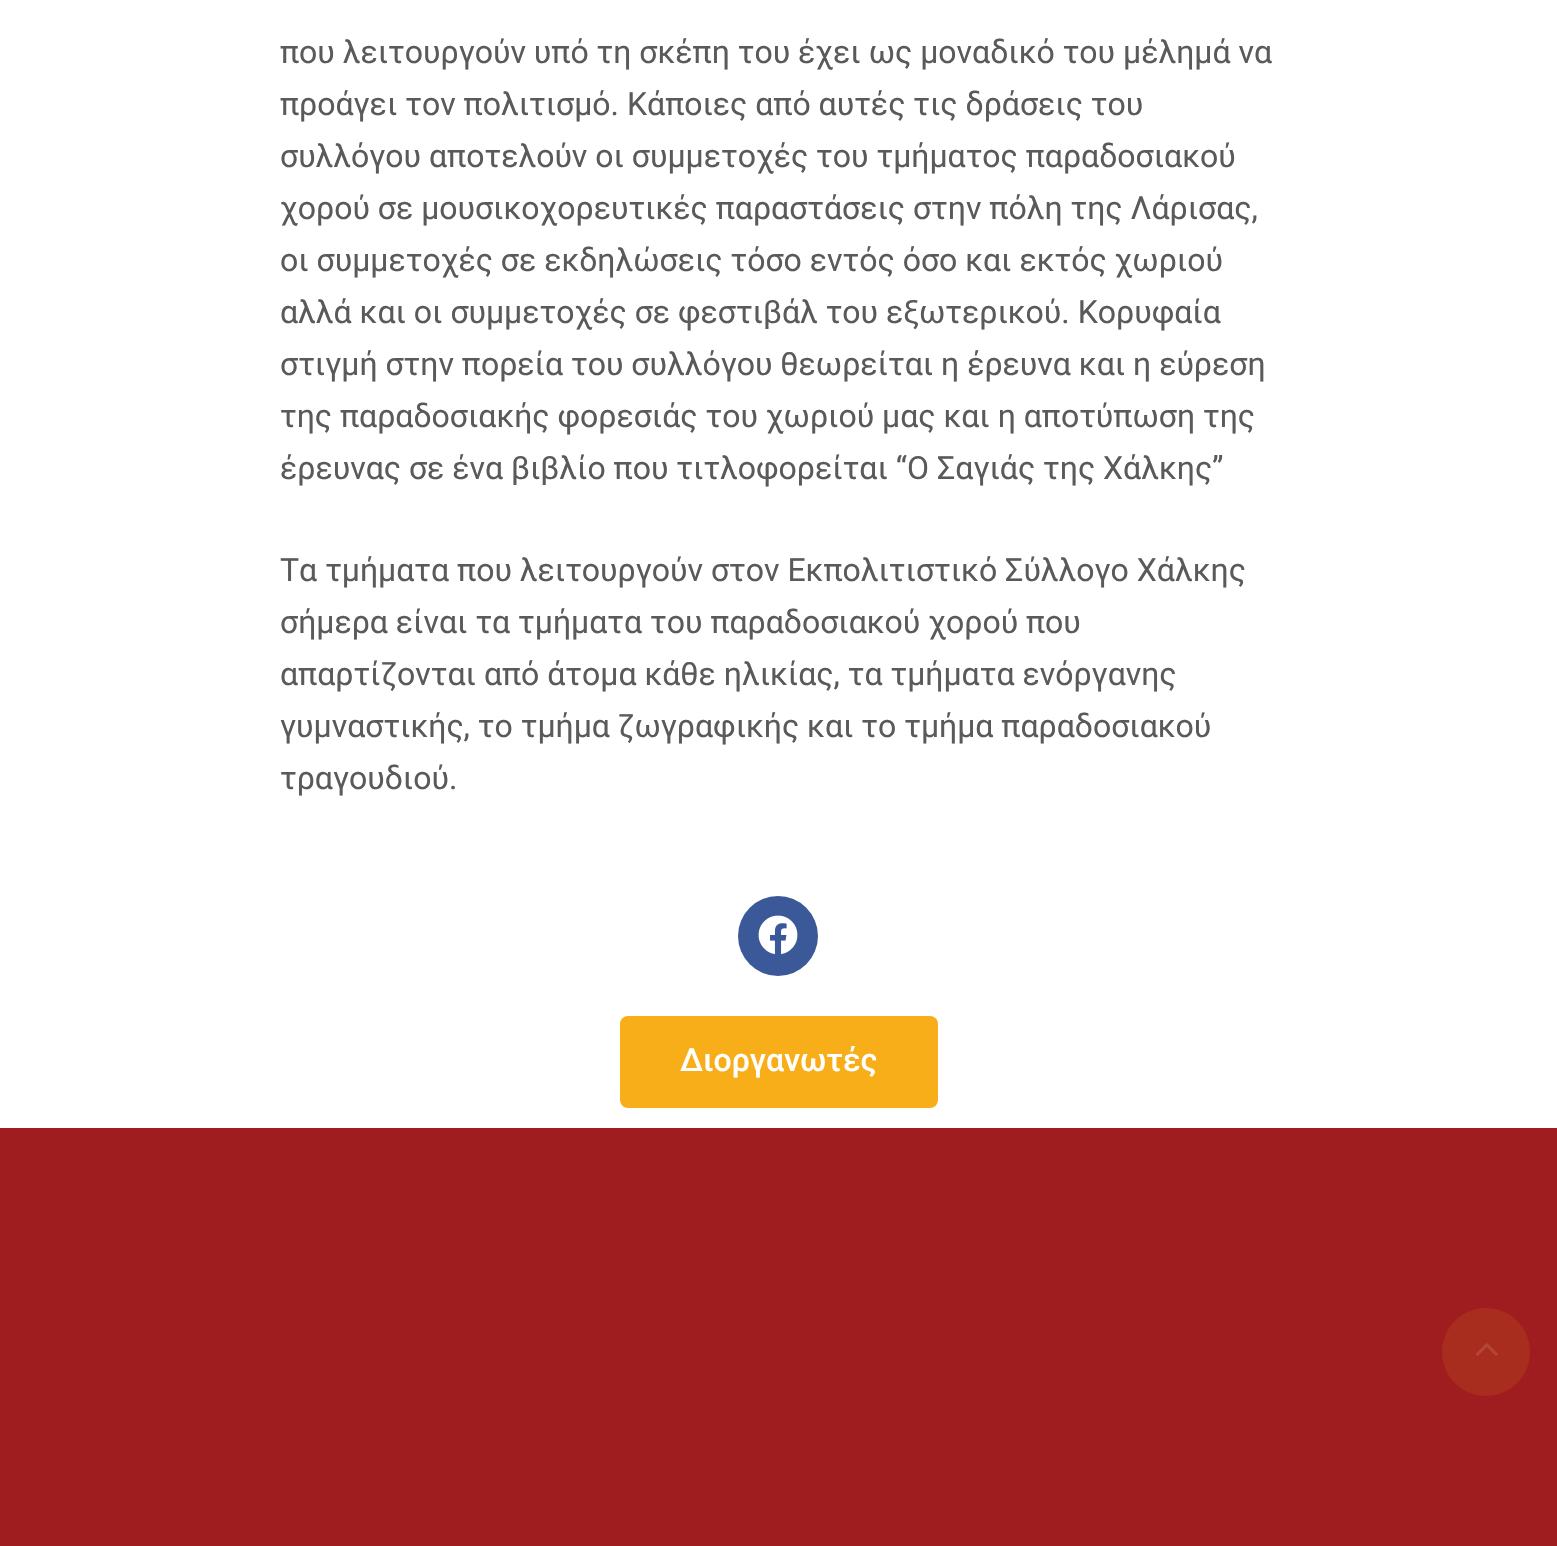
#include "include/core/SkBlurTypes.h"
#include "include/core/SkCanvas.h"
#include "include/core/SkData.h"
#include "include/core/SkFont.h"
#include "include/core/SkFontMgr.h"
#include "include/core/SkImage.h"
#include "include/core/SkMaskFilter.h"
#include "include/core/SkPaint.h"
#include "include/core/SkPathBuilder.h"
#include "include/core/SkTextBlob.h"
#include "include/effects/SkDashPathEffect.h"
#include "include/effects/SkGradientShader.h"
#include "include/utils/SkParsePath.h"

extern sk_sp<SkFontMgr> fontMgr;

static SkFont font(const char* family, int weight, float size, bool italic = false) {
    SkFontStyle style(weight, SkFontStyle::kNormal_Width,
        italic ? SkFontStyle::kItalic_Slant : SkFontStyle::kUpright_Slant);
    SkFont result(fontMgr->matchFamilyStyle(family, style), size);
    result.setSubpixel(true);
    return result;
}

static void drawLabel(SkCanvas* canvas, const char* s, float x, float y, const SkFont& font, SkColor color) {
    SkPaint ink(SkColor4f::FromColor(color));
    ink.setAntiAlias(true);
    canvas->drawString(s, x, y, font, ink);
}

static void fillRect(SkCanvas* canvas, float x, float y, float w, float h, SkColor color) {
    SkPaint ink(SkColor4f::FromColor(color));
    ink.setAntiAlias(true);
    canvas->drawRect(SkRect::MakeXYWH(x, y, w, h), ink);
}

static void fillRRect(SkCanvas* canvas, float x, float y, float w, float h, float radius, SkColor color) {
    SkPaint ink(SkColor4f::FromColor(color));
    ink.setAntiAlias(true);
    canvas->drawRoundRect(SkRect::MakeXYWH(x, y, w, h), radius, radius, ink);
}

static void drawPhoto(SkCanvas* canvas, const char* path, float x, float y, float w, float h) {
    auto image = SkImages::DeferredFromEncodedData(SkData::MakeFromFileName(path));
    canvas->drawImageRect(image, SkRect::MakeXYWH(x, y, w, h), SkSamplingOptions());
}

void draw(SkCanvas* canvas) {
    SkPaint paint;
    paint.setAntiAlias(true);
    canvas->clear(0xFFFFFFFF);
    SkFont font1 = font("Roboto", 400, 32);
    drawLabel(canvas, "που λειτουργούν υπό τη σκέπη του έχει ως μοναδικό του μέλημά να", 280, 63, font1, 0xFF5A5A5A);
    drawLabel(canvas, "προάγει τον πολιτισμό. Κάποιες από αυτές τις δράσεις του", 280, 115, font1, 0xFF5A5A5A);
    drawLabel(canvas, "συλλόγου αποτελούν οι συμμετοχές του τμήματος παραδοσιακού", 280, 167, font1, 0xFF5A5A5A);
    drawLabel(canvas, "χορού σε μουσικοχορευτικές παραστάσεις στην πόλη της Λάρισας,", 280, 219, font1, 0xFF5A5A5A);
    drawLabel(canvas, "οι συμμετοχές σε εκδηλώσεις τόσο εντός όσο και εκτός χωριού", 280, 271, font1, 0xFF5A5A5A);
    drawLabel(canvas, "αλλά και οι συμμετοχές σε φεστιβάλ του εξωτερικού. Κορυφαία", 280, 323, font1, 0xFF5A5A5A);
    drawLabel(canvas, "στιγμή στην πορεία του συλλόγου θεωρείται η έρευνα και η εύρεση", 280, 375, font1, 0xFF5A5A5A);
    drawLabel(canvas, "της παραδοσιακής φορεσιάς του χωριού μας και η αποτύπωση της", 280, 427, font1, 0xFF5A5A5A);
    drawLabel(canvas, "έρευνας σε ένα βιβλίο που τιτλοφορείται “Ο Σαγιάς της Χάλκης”", 280, 479, font1, 0xFF5A5A5A);
    drawLabel(canvas, "Τα τμήματα που λειτουργούν στον Εκπολιτιστικό Σύλλογο Χάλκης", 280, 581, font1, 0xFF5A5A5A);
    drawLabel(canvas, "σήμερα είναι τα τμήματα του παραδοσιακού χορού που", 280, 633, font1, 0xFF5A5A5A);
    drawLabel(canvas, "απαρτίζονται από άτομα κάθε ηλικίας, τα τμήματα ενόργανης", 280, 685, font1, 0xFF5A5A5A);
    drawLabel(canvas, "γυμναστικής, το τμήμα ζωγραφικής και το τμήμα παραδοσιακού", 280, 737, font1, 0xFF5A5A5A);
    drawLabel(canvas, "τραγουδιού.", 280, 789, font1, 0xFF5A5A5A);
    paint.setColor(0xFF3B5998);
    canvas->drawCircle(778, 936, 40, paint);
    drawPhoto(canvas, "assets/img1.png", 758, 915, 40, 40);
    fillRRect(canvas, 620, 1016, 318, 92, 8, 0xFFF8AE19);
    SkFont font2 = font("Roboto", 500, 32);
    drawLabel(canvas, "Διοργανωτές", 680, 1071, font2, 0xFFFFFFFF);
    fillRect(canvas, 0, 1128, 1557, 418, 0xFF9F1C1F);
    paint.setColor(0xFFA92D1E);
    canvas->drawCircle(1486, 1352, 44, paint);
    drawPhoto(canvas, "assets/img2.png", 1476, 1343, 22, 13);
}
